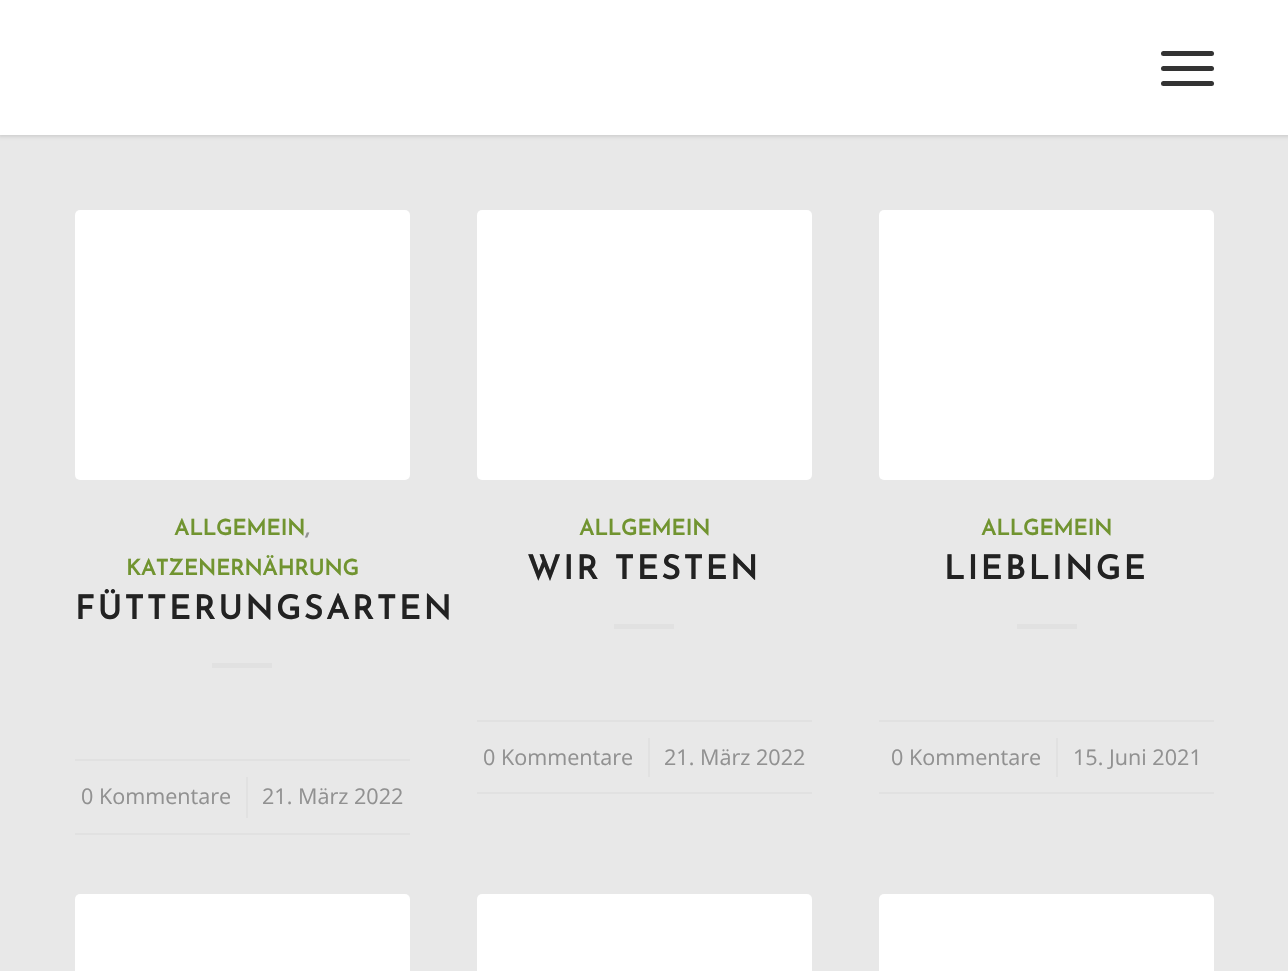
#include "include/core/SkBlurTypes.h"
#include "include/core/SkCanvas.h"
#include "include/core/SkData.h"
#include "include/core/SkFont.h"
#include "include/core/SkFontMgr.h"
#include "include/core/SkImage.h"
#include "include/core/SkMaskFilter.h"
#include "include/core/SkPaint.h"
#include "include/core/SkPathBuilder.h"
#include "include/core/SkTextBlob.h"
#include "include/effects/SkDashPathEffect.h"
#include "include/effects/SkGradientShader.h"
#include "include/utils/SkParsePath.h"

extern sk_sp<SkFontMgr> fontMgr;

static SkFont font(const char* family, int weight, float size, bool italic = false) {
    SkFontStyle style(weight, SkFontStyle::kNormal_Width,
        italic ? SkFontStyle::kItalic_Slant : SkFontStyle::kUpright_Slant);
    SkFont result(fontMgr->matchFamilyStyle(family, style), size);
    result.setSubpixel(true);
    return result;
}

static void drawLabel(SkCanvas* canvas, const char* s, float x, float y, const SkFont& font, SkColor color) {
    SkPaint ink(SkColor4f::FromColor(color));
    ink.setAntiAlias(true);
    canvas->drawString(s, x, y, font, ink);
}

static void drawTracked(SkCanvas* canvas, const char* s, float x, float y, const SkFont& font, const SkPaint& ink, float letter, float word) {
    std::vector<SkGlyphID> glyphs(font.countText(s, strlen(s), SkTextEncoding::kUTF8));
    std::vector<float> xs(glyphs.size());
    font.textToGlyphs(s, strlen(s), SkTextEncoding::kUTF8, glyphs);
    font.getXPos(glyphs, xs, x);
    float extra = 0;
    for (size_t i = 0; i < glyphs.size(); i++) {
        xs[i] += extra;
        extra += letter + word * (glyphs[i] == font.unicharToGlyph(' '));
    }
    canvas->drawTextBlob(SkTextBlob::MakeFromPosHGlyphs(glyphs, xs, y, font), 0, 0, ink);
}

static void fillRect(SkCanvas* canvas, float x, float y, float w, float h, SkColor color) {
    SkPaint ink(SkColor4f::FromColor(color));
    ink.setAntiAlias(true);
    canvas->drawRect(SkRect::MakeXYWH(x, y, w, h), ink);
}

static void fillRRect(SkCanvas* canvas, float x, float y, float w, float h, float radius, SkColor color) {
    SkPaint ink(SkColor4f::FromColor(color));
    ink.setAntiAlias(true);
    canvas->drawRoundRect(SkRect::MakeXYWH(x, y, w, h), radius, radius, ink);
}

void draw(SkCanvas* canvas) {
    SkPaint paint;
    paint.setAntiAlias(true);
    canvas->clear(0xFFE8E8E8);
    paint.setColor(0x1A000000);
    paint.setMaskFilter(SkMaskFilter::MakeBlur(kNormal_SkBlurStyle, 1.5f));
    canvas->drawRect(SkRect::MakeXYWH(-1, -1, 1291, 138), paint);
    paint.setMaskFilter(nullptr);
    fillRect(canvas, 0, 0, 1288, 135, 0xFFFFFFFF);
    fillRRect(canvas, 1161, 66, 53, 5, 2.5f, 0xFF333333);
    fillRRect(canvas, 1161, 51, 53, 5, 2.5f, 0xFF333333);
    fillRRect(canvas, 1161, 81, 53, 5, 2.5f, 0xFF333333);
    fillRRect(canvas, 75, 210, 335, 270, 5, 0xFFFFFFFF);
    SkFont font1 = font("Josefin Sans", 700, 21.6f);
    drawLabel(canvas, "ALLGEMEIN", 174, 535, font1, 0xFF719430);
    drawLabel(canvas, ",", 305, 535, font1, 0xFF919191);
    drawLabel(canvas, "KATZENERNÄHRUNG", 126, 575, font1, 0xFF719430);
    SkFont font2 = font("Josefin Sans", 700, 33);
    paint.setColor(0xFF222222);
    drawTracked(canvas, "FÜTTERUNGSARTEN", 75, 619, font2, paint, 3, 0);
    fillRect(canvas, 212, 663, 60, 5, 0xFFE1E1E1);
    fillRect(canvas, 75, 759, 335, 2, 0xFFE1E1E1);
    fillRect(canvas, 75, 833, 335, 2, 0xFFE1E1E1);
    SkFont font3 = font("Open Sans", 400, 21.6f);
    drawLabel(canvas, "0 Kommentare", 81, 804, font3, 0xFF919191);
    fillRect(canvas, 246, 777, 2, 41, 0xFFE1E1E1);
    drawLabel(canvas, "21. März 2022", 262, 804, font3, 0xFF919191);
    fillRRect(canvas, 477, 210, 335, 270, 5, 0xFFFFFFFF);
    drawLabel(canvas, "ALLGEMEIN", 579, 535, font1, 0xFF719430);
    drawTracked(canvas, "WIR TESTEN", 527, 579, font2, paint, 3, 0);
    fillRect(canvas, 614, 624, 60, 5, 0xFFE1E1E1);
    fillRect(canvas, 477, 720, 335, 2, 0xFFE1E1E1);
    fillRect(canvas, 477, 792, 335, 2, 0xFFE1E1E1);
    drawLabel(canvas, "0 Kommentare", 483, 765, font3, 0xFF919191);
    fillRect(canvas, 648, 738, 2, 39, 0xFFE1E1E1);
    drawLabel(canvas, "21. März 2022", 664, 765, font3, 0xFF919191);
    fillRRect(canvas, 879, 210, 335, 270, 5, 0xFFFFFFFF);
    drawLabel(canvas, "ALLGEMEIN", 981, 535, font1, 0xFF719430);
    drawTracked(canvas, "LIEBLINGE", 944, 579, font2, paint, 3, 0);
    fillRect(canvas, 1017, 624, 60, 5, 0xFFE1E1E1);
    fillRect(canvas, 879, 720, 335, 2, 0xFFE1E1E1);
    fillRect(canvas, 879, 792, 335, 2, 0xFFE1E1E1);
    drawLabel(canvas, "0 Kommentare", 891, 765, font3, 0xFF919191);
    fillRect(canvas, 1056, 738, 2, 39, 0xFFE1E1E1);
    drawLabel(canvas, "15. Juni 2021", 1073, 765, font3, 0xFF919191);
    fillRRect(canvas, 75, 894, 335, 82, 5, 0xFFFFFFFF);
    fillRRect(canvas, 477, 894, 335, 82, 5, 0xFFFFFFFF);
    fillRRect(canvas, 879, 894, 335, 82, 5, 0xFFFFFFFF);
}
